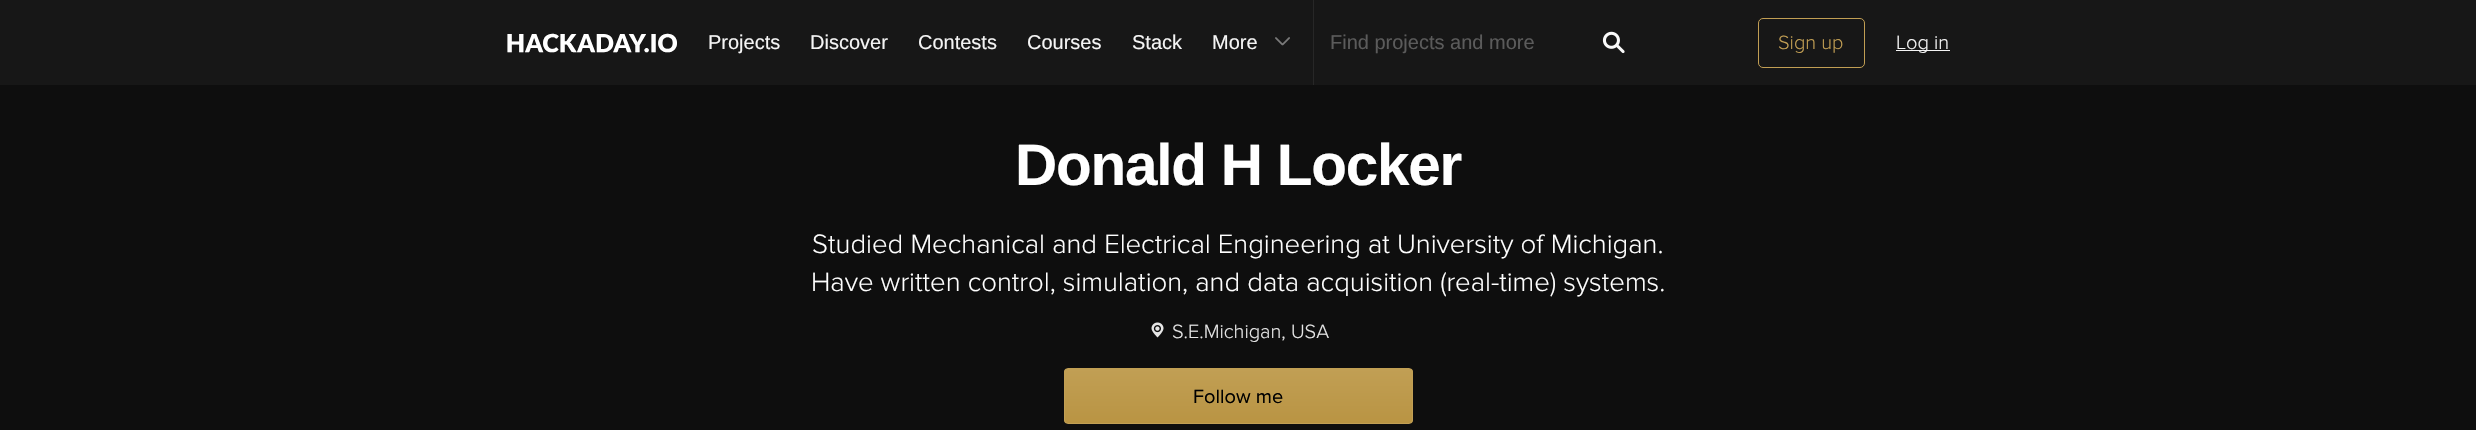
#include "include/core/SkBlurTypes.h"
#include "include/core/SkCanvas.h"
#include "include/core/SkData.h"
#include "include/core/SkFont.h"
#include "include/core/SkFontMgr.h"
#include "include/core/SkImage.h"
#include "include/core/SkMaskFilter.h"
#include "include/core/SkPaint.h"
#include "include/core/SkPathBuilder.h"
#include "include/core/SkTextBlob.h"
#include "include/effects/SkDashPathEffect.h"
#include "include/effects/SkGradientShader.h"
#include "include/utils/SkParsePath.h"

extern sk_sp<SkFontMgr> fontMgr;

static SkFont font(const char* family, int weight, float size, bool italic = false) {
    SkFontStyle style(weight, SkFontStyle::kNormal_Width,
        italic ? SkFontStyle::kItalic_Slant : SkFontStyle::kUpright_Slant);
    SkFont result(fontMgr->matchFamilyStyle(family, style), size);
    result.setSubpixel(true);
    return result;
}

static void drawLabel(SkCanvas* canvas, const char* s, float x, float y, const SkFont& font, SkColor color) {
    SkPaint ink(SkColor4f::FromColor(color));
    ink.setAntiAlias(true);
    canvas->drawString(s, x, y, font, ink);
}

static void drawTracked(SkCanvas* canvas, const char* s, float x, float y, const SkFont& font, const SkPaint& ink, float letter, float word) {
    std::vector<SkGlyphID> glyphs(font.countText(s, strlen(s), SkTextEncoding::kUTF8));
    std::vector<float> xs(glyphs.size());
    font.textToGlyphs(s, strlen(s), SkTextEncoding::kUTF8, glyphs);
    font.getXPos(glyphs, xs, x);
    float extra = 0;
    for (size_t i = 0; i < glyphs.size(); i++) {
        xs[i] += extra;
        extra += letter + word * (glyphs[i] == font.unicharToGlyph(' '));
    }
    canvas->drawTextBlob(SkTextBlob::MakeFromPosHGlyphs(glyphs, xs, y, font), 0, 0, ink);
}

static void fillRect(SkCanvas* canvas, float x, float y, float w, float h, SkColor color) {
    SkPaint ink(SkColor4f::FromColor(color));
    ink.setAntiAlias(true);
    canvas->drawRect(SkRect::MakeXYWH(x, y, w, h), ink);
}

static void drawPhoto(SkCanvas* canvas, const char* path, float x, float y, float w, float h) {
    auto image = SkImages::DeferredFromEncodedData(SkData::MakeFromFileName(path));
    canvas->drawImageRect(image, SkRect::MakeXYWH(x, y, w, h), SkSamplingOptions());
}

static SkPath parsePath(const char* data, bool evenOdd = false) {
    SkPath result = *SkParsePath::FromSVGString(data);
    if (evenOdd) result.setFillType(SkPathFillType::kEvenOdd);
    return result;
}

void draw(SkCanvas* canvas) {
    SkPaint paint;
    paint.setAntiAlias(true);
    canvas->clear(0xFF171717);
    drawPhoto(canvas, "assets/img1.png", 507, 33, 170, 20);
    SkFont font1 = font("Liberation Sans", 400, 20);
    drawLabel(canvas, "Projects", 708, 49, font1, 0xFFF5F5F5);
    drawLabel(canvas, "Discover", 810, 49, font1, 0xFFF5F5F5);
    drawLabel(canvas, "Contests", 918, 49, font1, 0xFFF5F5F5);
    drawLabel(canvas, "Courses", 1027, 49, font1, 0xFFF5F5F5);
    drawLabel(canvas, "Stack", 1132, 49, font1, 0xFFF5F5F5);
    drawLabel(canvas, "More", 1212, 49, font1, 0xFFF5F5F5);
    drawPhoto(canvas, "assets/img2.png", 1275, 37, 15, 9);
    fillRect(canvas, 1313, 0, 1, 85, 0xFF272727);
    drawLabel(canvas, "Find projects and more", 1330, 49, font1, 0xFF5B5B5B);
    drawPhoto(canvas, "assets/img3.png", 1602, 31, 23, 23);
    paint.setStroke(true);
    paint.setStrokeWidth(1);
    paint.setColor(0xFFC19E53);
    canvas->drawRoundRect(SkRect::MakeXYWH(1758.5f, 18.5f, 106, 49), 4.5f, 4.5f, paint);
    SkFont font2 = font("Proxima Nova", 300, 20);
    drawLabel(canvas, "Sign up", 1778, 49, font2, 0xFFC19E53);
    fillRect(canvas, 1896, 50, 54, 1, 0xFFF5F5F5);
    drawLabel(canvas, "Log in", 1896, 49, font2, 0xFFF5F5F5);
    fillRect(canvas, 0, 85, 2476, 345, 0xFF0E0E0E);
    SkFont font3 = font("Liberation Sans", 700, 58.5f);
    paint.setStroke(false);
    paint.setColor(0xFFFFFFFF);
    drawTracked(canvas, "Donald H Locker", 1015, 185, font3, paint, -1.25f, 0);
    SkFont font4 = font("Proxima Nova", 300, 27.5f);
    drawLabel(canvas, "Studied Mechanical and Electrical Engineering at University of Michigan.", 812, 253, font4, 0xFFFFFFFF);
    drawLabel(canvas, "Have written control, simulation, and data acquisition (real-time) systems.", 811, 291, font4, 0xFFFFFFFF);
    drawPhoto(canvas, "assets/img4.png", 1151, 322, 13, 16);
    drawLabel(canvas, "S.E.Michigan, USA", 1172, 338, font2, 0xFFE6E6E6);
    canvas->save();
    canvas->clipPath(parsePath("M1068 368H1409C1411 368 1413 370 1413 372V420C1413 422 1411 424 1409 424H1068C1066 424 1064 422 1064 420V372C1064 370 1066 368 1068 368Z"), true);
    {
        const SkColor colors[] = {0xFFC19F54, 0xFFB99443};
        const float stops[] = {0, 1};
        const SkPoint ends[] = {{1238, 369}, {1238, 423}};
        paint.setShader(SkGradientShader::MakeLinear(ends, colors, stops, 2, SkTileMode::kClamp));
        paint.setAlpha(255);
    }
    canvas->drawRect(SkRect::MakeXYWH(1064, 369, 349, 54), paint);
    canvas->restore();
    paint.setStroke(true);
    paint.setShader(nullptr);
    paint.setColor(0xFFC19F54);
    canvas->drawRoundRect(SkRect::MakeXYWH(1064.5f, 368.5f, 348, 55), 3.5f, 3.5f, paint);
    SkFont font5 = font("Proxima Nova", 400, 20);
    drawLabel(canvas, "Follow me", 1193, 403, font5, 0xFF000000);
}
